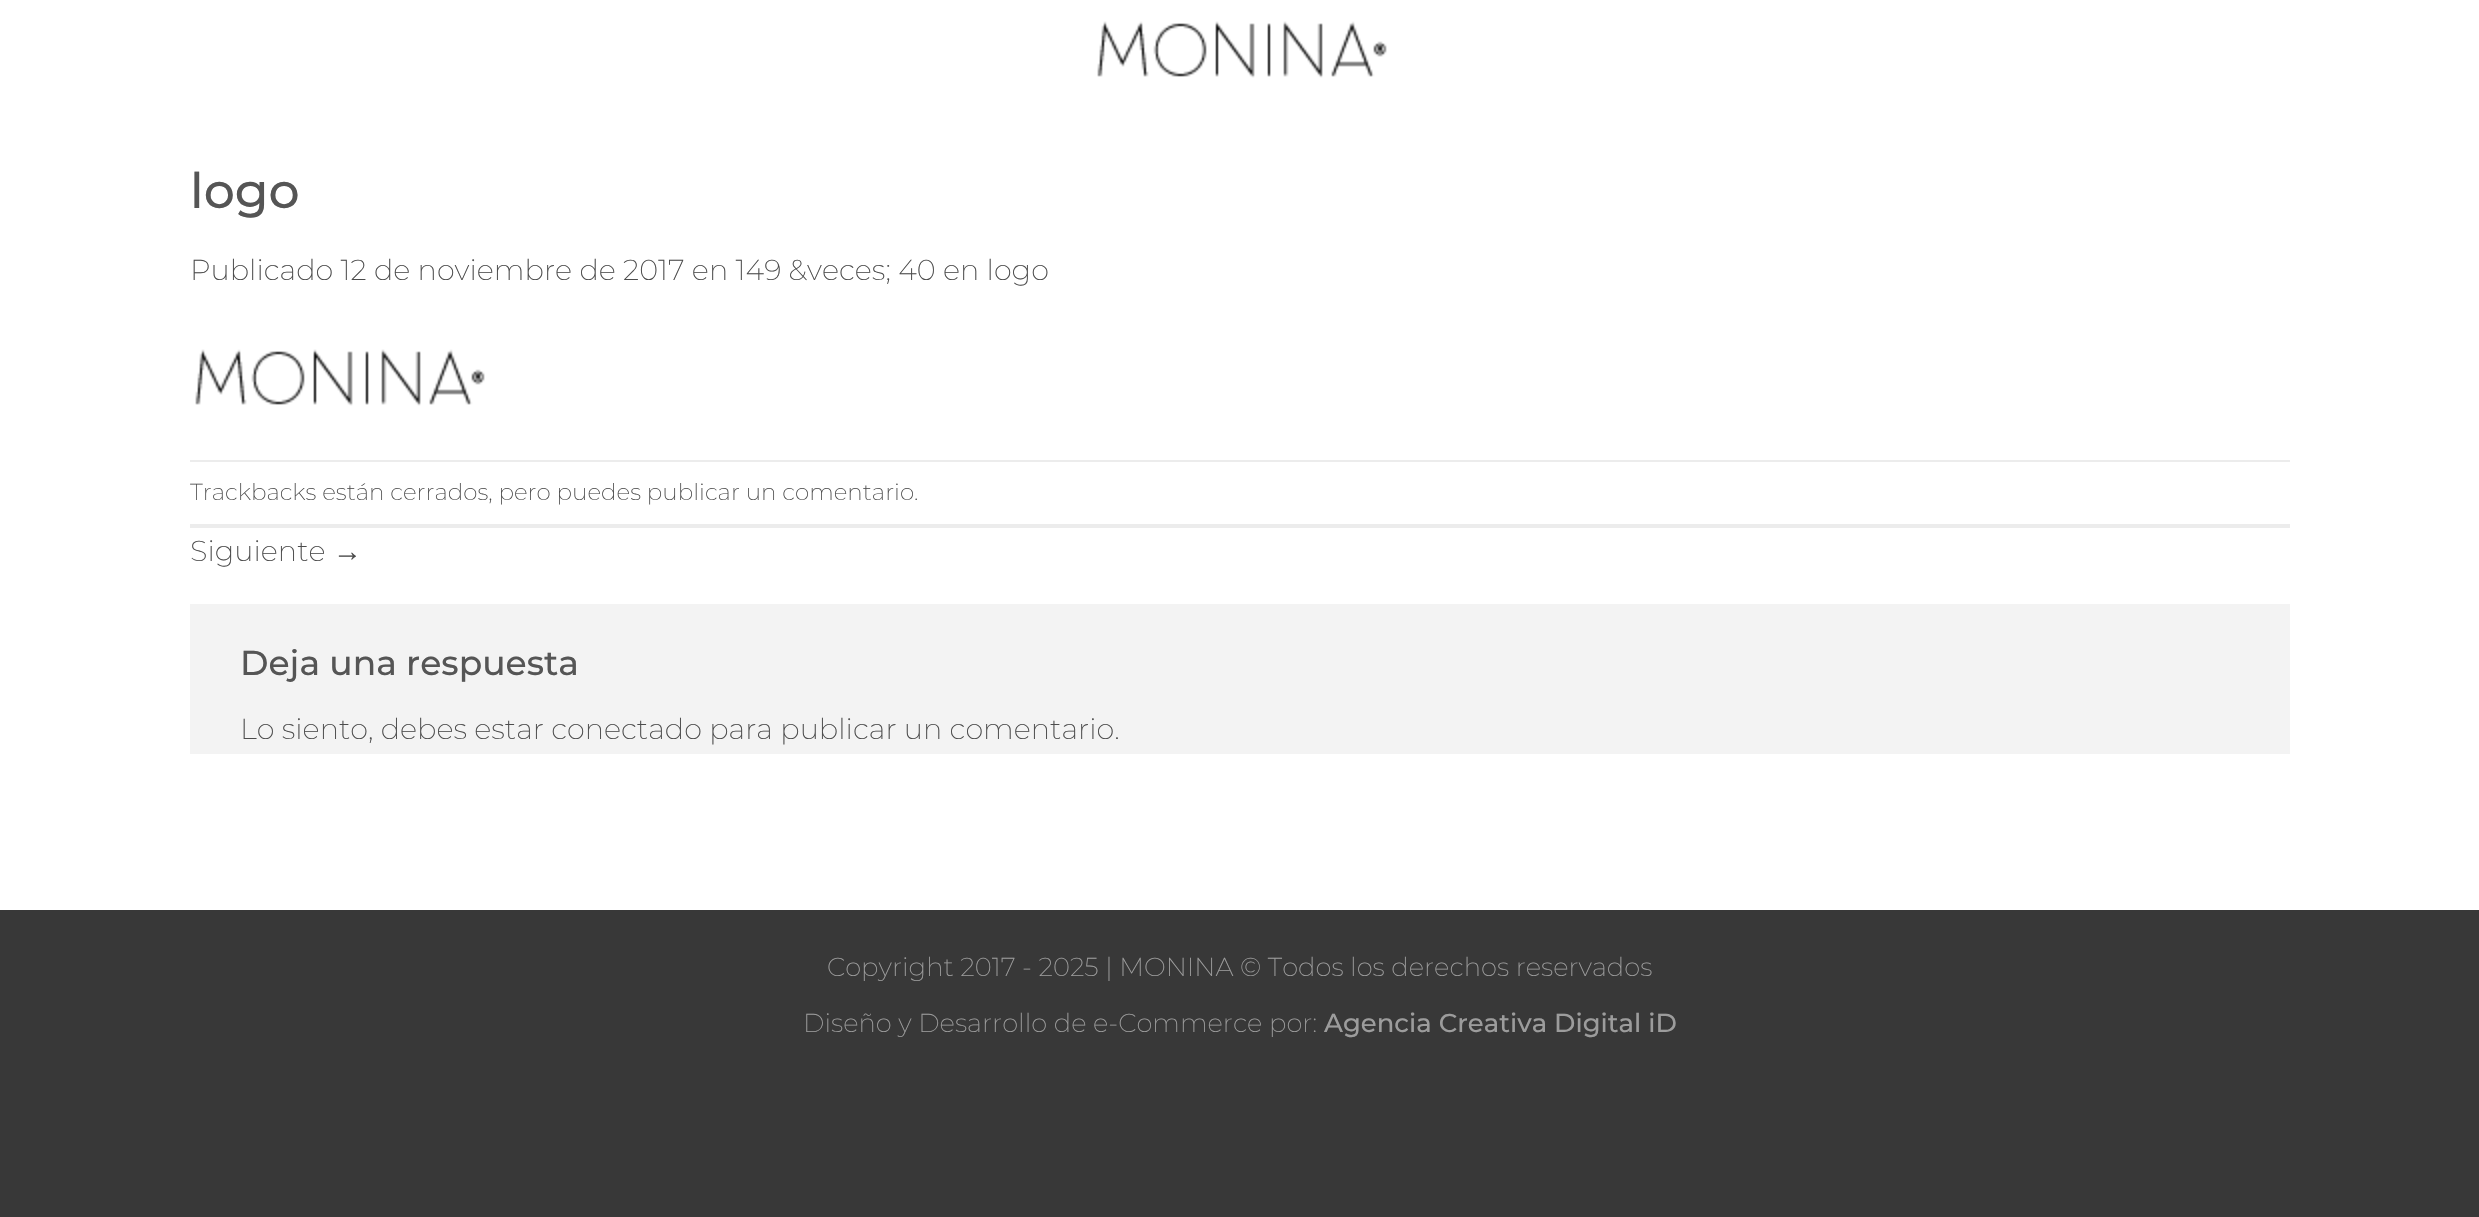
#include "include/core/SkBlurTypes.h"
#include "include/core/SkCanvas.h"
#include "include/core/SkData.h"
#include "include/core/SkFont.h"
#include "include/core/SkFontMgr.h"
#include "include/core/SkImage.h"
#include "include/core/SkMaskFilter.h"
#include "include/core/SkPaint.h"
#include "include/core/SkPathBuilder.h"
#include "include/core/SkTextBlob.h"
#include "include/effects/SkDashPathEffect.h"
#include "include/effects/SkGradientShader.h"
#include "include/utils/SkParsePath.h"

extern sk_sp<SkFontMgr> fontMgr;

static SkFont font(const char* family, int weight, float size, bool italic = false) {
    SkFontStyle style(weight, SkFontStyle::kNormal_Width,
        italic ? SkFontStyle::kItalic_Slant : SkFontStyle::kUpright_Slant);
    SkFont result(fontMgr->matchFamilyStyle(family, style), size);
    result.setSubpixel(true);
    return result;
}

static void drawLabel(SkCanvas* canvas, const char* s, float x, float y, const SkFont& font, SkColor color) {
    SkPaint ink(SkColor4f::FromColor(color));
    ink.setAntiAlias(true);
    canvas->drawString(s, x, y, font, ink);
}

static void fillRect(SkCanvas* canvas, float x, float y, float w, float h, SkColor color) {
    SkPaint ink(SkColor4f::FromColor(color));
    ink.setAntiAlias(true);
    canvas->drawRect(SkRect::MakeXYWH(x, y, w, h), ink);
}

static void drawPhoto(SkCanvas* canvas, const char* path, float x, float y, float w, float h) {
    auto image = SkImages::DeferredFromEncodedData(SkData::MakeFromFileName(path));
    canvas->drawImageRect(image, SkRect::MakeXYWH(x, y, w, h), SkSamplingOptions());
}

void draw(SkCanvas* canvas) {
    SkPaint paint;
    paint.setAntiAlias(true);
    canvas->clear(0xFF383838);
    fillRect(canvas, 0, 0, 2479, 910, 0xFFFFFFFF);
    drawPhoto(canvas, "assets/img1.png", 1097, 21, 290, 57);
    SkFont font1 = font("Montserrat", 500, 49);
    drawLabel(canvas, "logo", 190, 208, font1, 0xFF555555);
    SkFont font2 = font("Montserrat", 200, 28.8f);
    drawLabel(canvas, "Publicado 12 de noviembre de 2017 en 149 &veces; 40 en logo", 190, 280, font2, 0xFF4C4C4C);
    drawPhoto(canvas, "assets/img1.png", 195, 349, 290, 57);
    fillRect(canvas, 190, 460, 2100, 2, 0xFFECECEC);
    fillRect(canvas, 190, 524, 2100, 4, 0xFFECECEC);
    SkFont font3 = font("Montserrat", 200, 23.05f);
    drawLabel(canvas, "Trackbacks están cerrados, pero puedes publicar un comentario.", 190, 500, font3, 0xFF4C4C4C);
    drawLabel(canvas, "Siguiente", 190, 561, font2, 0xFF4C4C4C);
    SkFont font4 = font("Liberation Sans", 400, 28.8f);
    drawLabel(canvas, "→", 333, 561, font4, 0xFF4C4C4C);
    fillRect(canvas, 190, 604, 2100, 150, 0xFFF3F3F3);
    SkFont font5 = font("Montserrat", 500, 34.5f);
    drawLabel(canvas, "Deja una respuesta", 240, 675, font5, 0xFF555555);
    drawLabel(canvas, "Lo siento, debes estar conectado para publicar un comentario.", 240, 739, font2, 0xFF4C4C4C);
    SkFont font6 = font("Montserrat", 200, 25.9f);
    drawLabel(canvas, "Copyright 2017 - 2025 | MONINA © Todos los derechos reservados", 827, 976, font6, 0xFF9C9C9C);
    drawLabel(canvas, "Diseño y Desarrollo de e-Commerce por:", 803, 1032, font6, 0xFF9C9C9C);
    SkFont font7 = font("Montserrat", 500, 25.9f);
    drawLabel(canvas, "Agencia Creativa Digital iD", 1324, 1032, font7, 0xFF9C9C9C);
}
